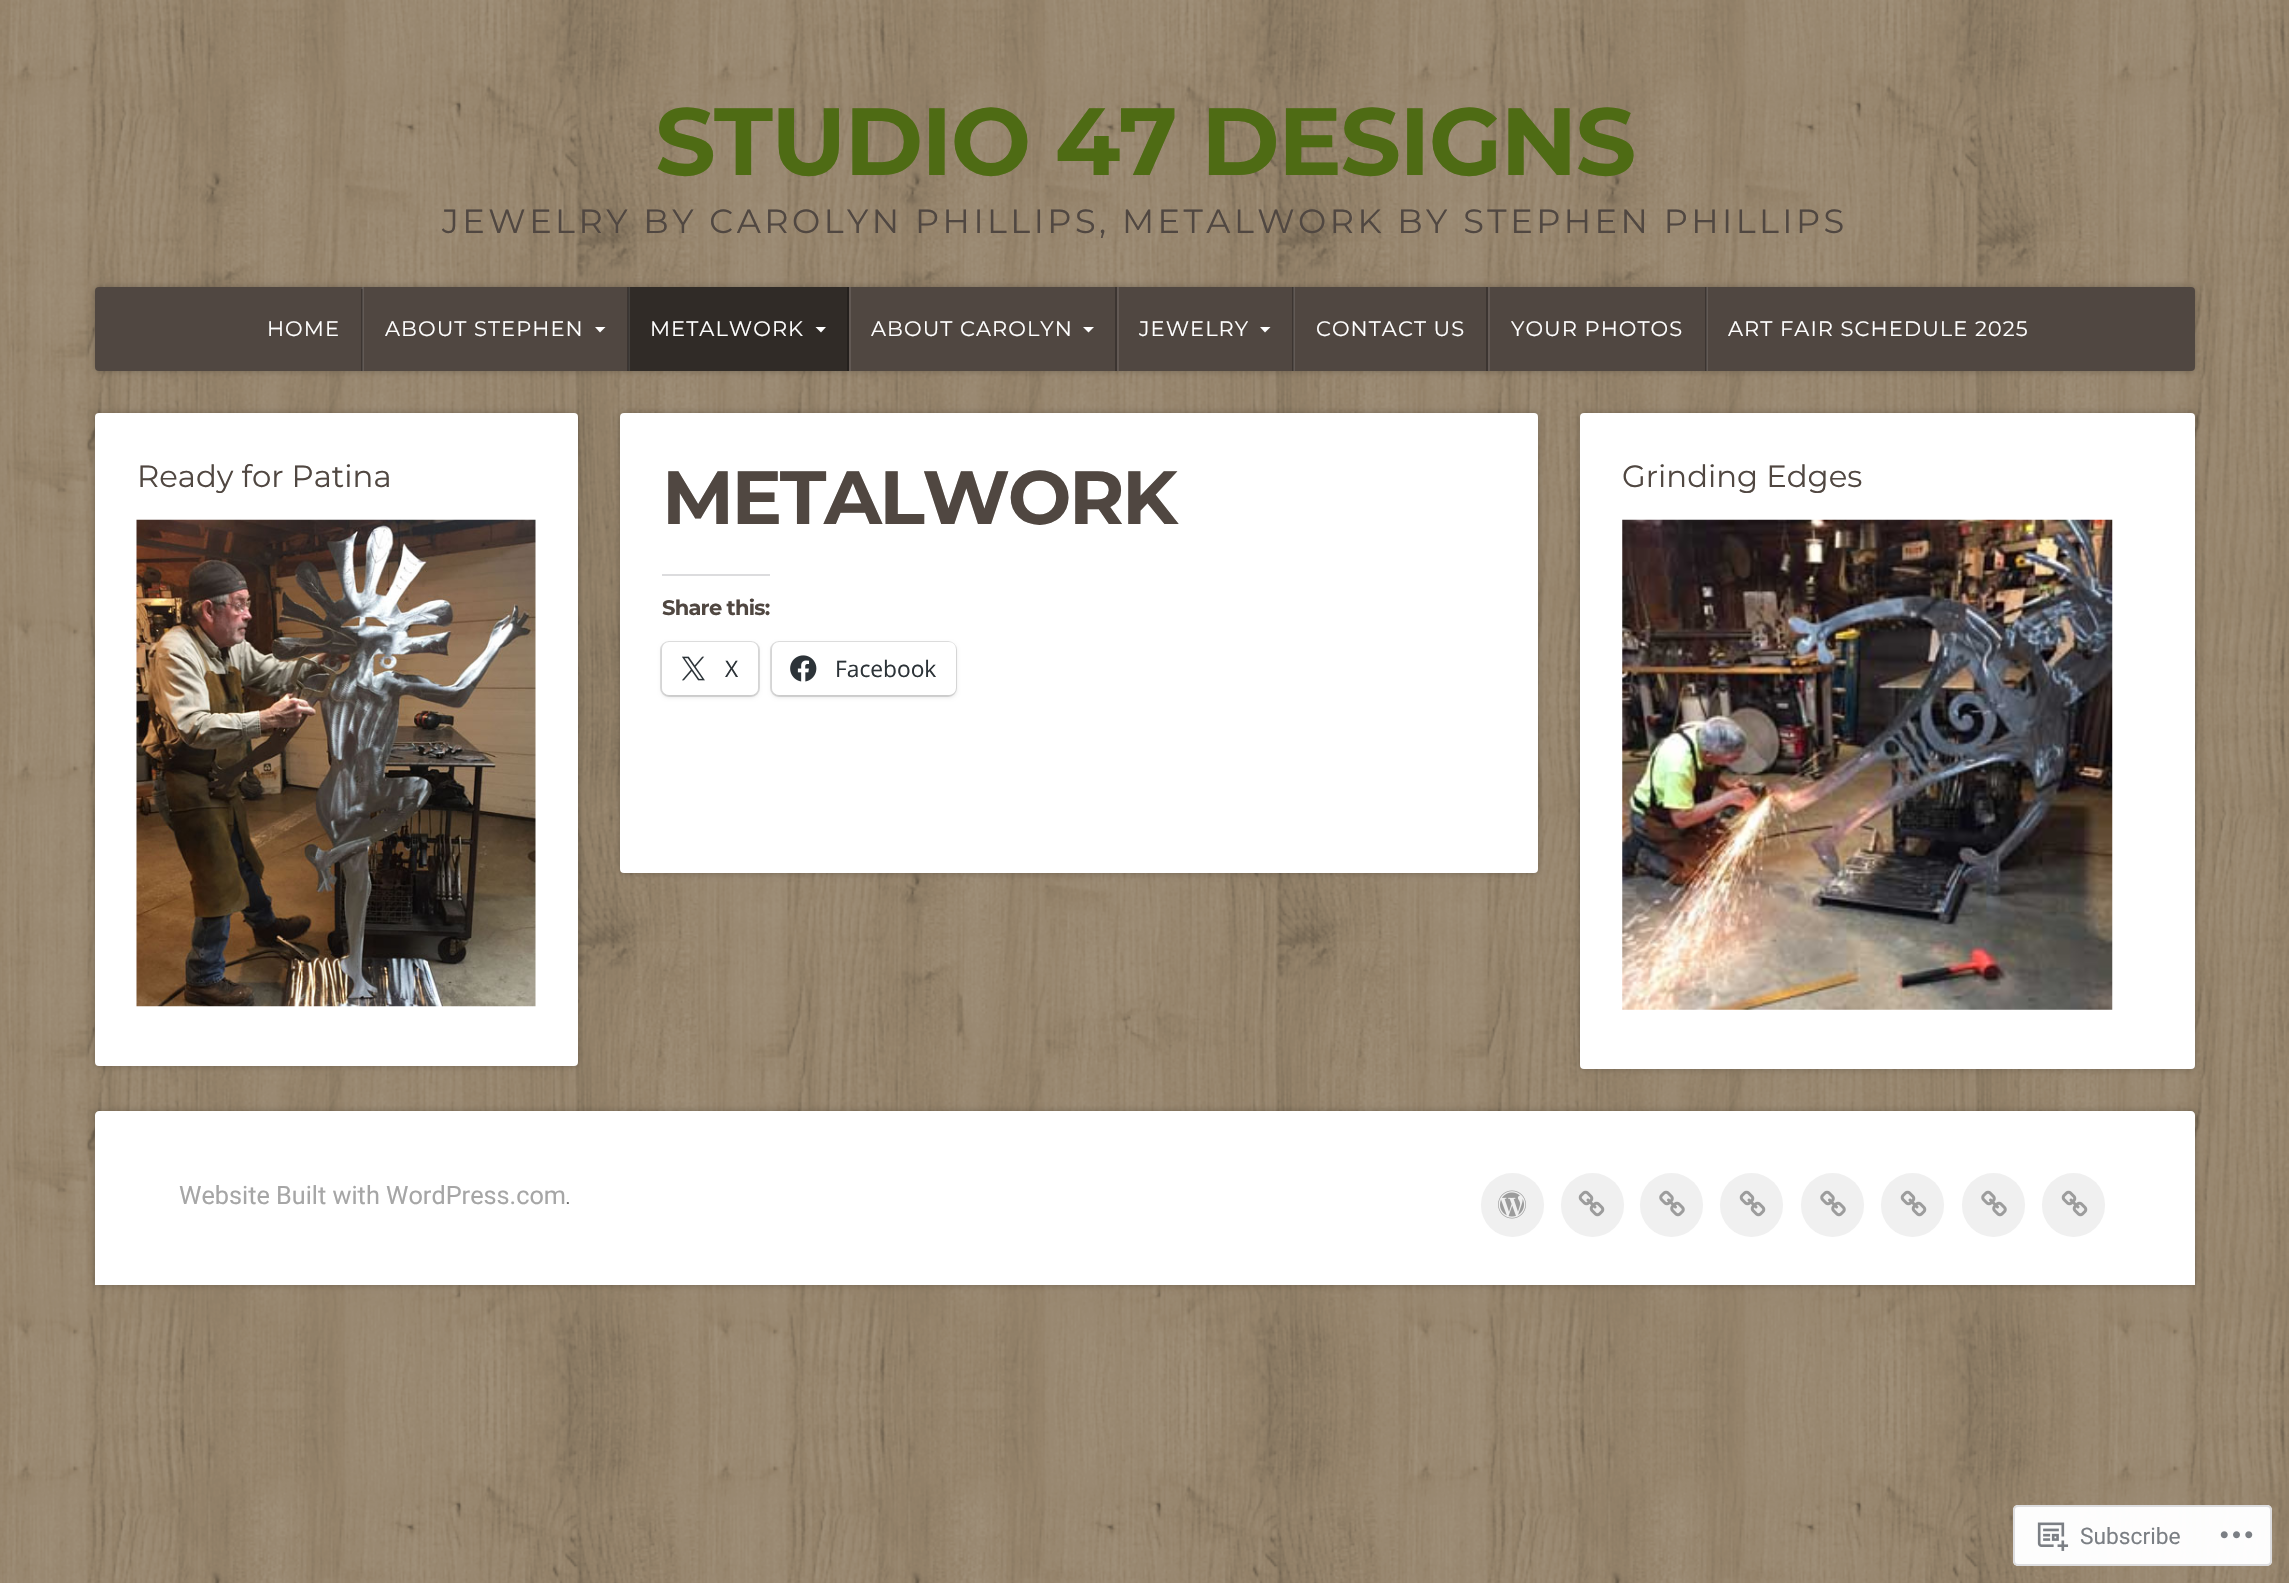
#include "include/core/SkBlurTypes.h"
#include "include/core/SkCanvas.h"
#include "include/core/SkData.h"
#include "include/core/SkFont.h"
#include "include/core/SkFontMgr.h"
#include "include/core/SkImage.h"
#include "include/core/SkMaskFilter.h"
#include "include/core/SkPaint.h"
#include "include/core/SkPathBuilder.h"
#include "include/core/SkTextBlob.h"
#include "include/effects/SkDashPathEffect.h"
#include "include/effects/SkGradientShader.h"
#include "include/utils/SkParsePath.h"

extern sk_sp<SkFontMgr> fontMgr;

static SkFont font(const char* family, int weight, float size, bool italic = false) {
    SkFontStyle style(weight, SkFontStyle::kNormal_Width,
        italic ? SkFontStyle::kItalic_Slant : SkFontStyle::kUpright_Slant);
    SkFont result(fontMgr->matchFamilyStyle(family, style), size);
    result.setSubpixel(true);
    return result;
}

static void drawLabel(SkCanvas* canvas, const char* s, float x, float y, const SkFont& font, SkColor color) {
    SkPaint ink(SkColor4f::FromColor(color));
    ink.setAntiAlias(true);
    canvas->drawString(s, x, y, font, ink);
}

static void drawTracked(SkCanvas* canvas, const char* s, float x, float y, const SkFont& font, const SkPaint& ink, float letter, float word) {
    std::vector<SkGlyphID> glyphs(font.countText(s, strlen(s), SkTextEncoding::kUTF8));
    std::vector<float> xs(glyphs.size());
    font.textToGlyphs(s, strlen(s), SkTextEncoding::kUTF8, glyphs);
    font.getXPos(glyphs, xs, x);
    float extra = 0;
    for (size_t i = 0; i < glyphs.size(); i++) {
        xs[i] += extra;
        extra += letter + word * (glyphs[i] == font.unicharToGlyph(' '));
    }
    canvas->drawTextBlob(SkTextBlob::MakeFromPosHGlyphs(glyphs, xs, y, font), 0, 0, ink);
}

static void fillRect(SkCanvas* canvas, float x, float y, float w, float h, SkColor color) {
    SkPaint ink(SkColor4f::FromColor(color));
    ink.setAntiAlias(true);
    canvas->drawRect(SkRect::MakeXYWH(x, y, w, h), ink);
}

static void fillRRect(SkCanvas* canvas, float x, float y, float w, float h, float radius, SkColor color) {
    SkPaint ink(SkColor4f::FromColor(color));
    ink.setAntiAlias(true);
    canvas->drawRoundRect(SkRect::MakeXYWH(x, y, w, h), radius, radius, ink);
}

static void drawPhoto(SkCanvas* canvas, const char* path, float x, float y, float w, float h) {
    auto image = SkImages::DeferredFromEncodedData(SkData::MakeFromFileName(path));
    canvas->drawImageRect(image, SkRect::MakeXYWH(x, y, w, h), SkSamplingOptions());
}

static SkPath parsePath(const char* data, bool evenOdd = false) {
    SkPath result = *SkParsePath::FromSVGString(data);
    if (evenOdd) result.setFillType(SkPathFillType::kEvenOdd);
    return result;
}

void draw(SkCanvas* canvas) {
    SkPaint paint;
    paint.setAntiAlias(true);
    canvas->clear(0xFFFFFFFF);
    drawPhoto(canvas, "assets/img1.png", 0, 0, 2289, 1583);
    SkFont font1 = font("Montserrat", 700, 95.25f);
    paint.setColor(0xFF4E6B14);
    drawTracked(canvas, "STUDIO 47 DESIGNS", 655, 175, font1, paint, -1.75f, 0);
    SkFont font2 = font("Montserrat", 400, 33.6f);
    paint.setColor(0xFF504741);
    drawTracked(canvas, "JEWELRY BY CAROLYN PHILLIPS, METALWORK BY STEPHEN PHILLIPS", 442, 233, font2, paint, 3.5f, 0);
    paint.setColor(0x3D000000);
    paint.setMaskFilter(SkMaskFilter::MakeBlur(kNormal_SkBlurStyle, 3.5f));
    canvas->drawRoundRect(SkRect::MakeXYWH(95, 287, 2100, 84), 4, 4, paint);
    paint.setMaskFilter(nullptr);
    fillRRect(canvas, 95, 287, 2100, 84, 4, 0xFF504741);
    fillRect(canvas, 361, 289, 2, 82, 0xFF3C3531);
    SkFont font3 = font("Montserrat", 400, 21);
    paint.setColor(0xFFFFFFFF);
    drawTracked(canvas, "HOME", 267, 336, font3, paint, 1.05f, 0);
    fillRect(canvas, 627, 287, 2, 84, 0xFF3C3531);
    fillRect(canvas, 362, 287, 2, 84, 0x1AFFFFFF);
    drawTracked(canvas, "ABOUT STEPHEN", 385, 336, font3, paint, 1.05f, 0);
    canvas->drawPath(parsePath("M595 327H605.5L600 332.5Z"), paint);
    fillRect(canvas, 628, 287, 219, 84, 0x66000000);
    fillRect(canvas, 847, 287, 2, 84, 0xFF24201D);
    fillRect(canvas, 628, 287, 2, 84, 0x1AFFFFFF);
    drawTracked(canvas, "METALWORK", 650, 336, font3, paint, 1.05f, 0);
    canvas->drawPath(parsePath("M815.5 327H826L821 332.5Z"), paint);
    fillRect(canvas, 1115, 287, 2, 84, 0xFF3C3531);
    fillRect(canvas, 849, 287, 2, 84, 0xFF625954);
    drawTracked(canvas, "ABOUT CAROLYN", 871, 336, font3, paint, 1.05f, 0);
    canvas->drawPath(parsePath("M1083 327H1094L1088.5 332.5Z"), paint);
    fillRect(canvas, 1292, 287, 2, 84, 0xFF3C3531);
    fillRect(canvas, 1117, 287, 2, 84, 0xFF625954);
    drawTracked(canvas, "JEWELRY", 1139, 336, font3, paint, 1.05f, 0);
    canvas->drawPath(parsePath("M1260 327H1270.5L1265 332.5Z"), paint);
    fillRect(canvas, 1486, 287, 2, 84, 0xFF3C3531);
    fillRect(canvas, 1293, 287, 2, 84, 0x1AFFFFFF);
    drawTracked(canvas, "CONTACT US", 1316, 336, font3, paint, 1.05f, 0);
    fillRect(canvas, 1705, 287, 2, 84, 0xFF3C3531);
    fillRect(canvas, 1488, 287, 2, 84, 0xFF625954);
    drawTracked(canvas, "YOUR PHOTOS", 1511, 336, font3, paint, 1.05f, 0);
    fillRect(canvas, 1706, 287, 2, 84, 0x1AFFFFFF);
    drawTracked(canvas, "ART FAIR SCHEDULE 2025", 1728, 336, font3, paint, 1.05f, 0);
    paint.setColor(0x3D000000);
    paint.setMaskFilter(SkMaskFilter::MakeBlur(kNormal_SkBlurStyle, 3.5f));
    canvas->drawRoundRect(SkRect::MakeXYWH(95, 413, 483, 653), 4, 4, paint);
    paint.setMaskFilter(nullptr);
    fillRRect(canvas, 95, 413, 483, 653, 4, 0xFFFFFFFF);
    SkFont font4 = font("Montserrat", 400, 30.75f);
    drawLabel(canvas, "Ready for Patina", 137, 487, font4, 0xFF504741);
    drawPhoto(canvas, "assets/img2.png", 136, 519, 400, 488);
    paint.setMaskFilter(SkMaskFilter::MakeBlur(kNormal_SkBlurStyle, 3.5f));
    canvas->drawRoundRect(SkRect::MakeXYWH(620, 413, 918, 460), 4, 4, paint);
    paint.setMaskFilter(nullptr);
    fillRRect(canvas, 620, 413, 918, 460, 4, 0xFFFFFFFF);
    SkFont font5 = font("Montserrat", 700, 75.5f);
    paint.setColor(0xFF504741);
    drawTracked(canvas, "METALWORK", 662, 524, font5, paint, -2.5f, 0);
    fillRect(canvas, 662, 574, 108, 2, 0xFFDCDCDE);
    SkFont font6 = font("Montserrat", 700, 21);
    drawTracked(canvas, "Share this:", 662, 615, font6, paint, -0.75f, 0);
    paint.setStroke(true);
    paint.setStrokeWidth(2);
    paint.setColor(0xFFE0E0E0);
    canvas->drawRoundRect(SkRect::MakeXYWH(661, 642, 98, 54), 8, 8, paint);
    paint.setStroke(false);
    paint.setColor(0x1F000000);
    paint.setMaskFilter(SkMaskFilter::MakeBlur(kNormal_SkBlurStyle, 2));
    canvas->drawRoundRect(SkRect::MakeXYWH(662, 644, 96, 53), 7, 7, paint);
    paint.setMaskFilter(nullptr);
    fillRRect(canvas, 662, 642, 96, 53, 7, 0xFFFFFFFF);
    drawPhoto(canvas, "assets/img3.png", 682, 656, 23, 25);
    SkFont font7 = font("Open Sans", 400, 22.75f);
    drawLabel(canvas, "X", 725, 677, font7, 0xFF2C3338);
    paint.setStroke(true);
    paint.setColor(0xFFE0E0E0);
    canvas->drawRoundRect(SkRect::MakeXYWH(771, 642, 185, 54), 8, 8, paint);
    paint.setStroke(false);
    paint.setColor(0x1F000000);
    paint.setMaskFilter(SkMaskFilter::MakeBlur(kNormal_SkBlurStyle, 2));
    canvas->drawRoundRect(SkRect::MakeXYWH(772, 644, 184, 53), 7, 7, paint);
    paint.setMaskFilter(nullptr);
    fillRRect(canvas, 772, 642, 184, 53, 7, 0xFFFFFFFF);
    drawPhoto(canvas, "assets/img4.png", 790, 655, 27, 27);
    drawLabel(canvas, "Facebook", 835, 677, font7, 0xFF2C3338);
    paint.setColor(0x3D000000);
    paint.setMaskFilter(SkMaskFilter::MakeBlur(kNormal_SkBlurStyle, 3.5f));
    canvas->drawRoundRect(SkRect::MakeXYWH(1580, 413, 615, 656), 4, 4, paint);
    paint.setMaskFilter(nullptr);
    fillRRect(canvas, 1580, 413, 615, 656, 4, 0xFFFFFFFF);
    drawLabel(canvas, "Grinding Edges", 1622, 487, font4, 0xFF504741);
    drawPhoto(canvas, "assets/img5.png", 1622, 519, 491, 491);
    paint.setMaskFilter(SkMaskFilter::MakeBlur(kNormal_SkBlurStyle, 3.5f));
    canvas->drawRoundRect(SkRect::MakeXYWH(95, 1111, 2100, 174), 4, 4, paint);
    paint.setMaskFilter(nullptr);
    paint.setColor(0xFFFFFFFF);
    canvas->drawPath(parsePath("M99 1111H2191C2193 1111 2195 1113 2195 1115V1285H95V1115C95 1113 97 1111 99 1111Z"), paint);
    SkFont font8 = font("Roboto", 400, 25.25f);
    drawLabel(canvas, "Website Built with WordPress.com", 179, 1204, font8, 0xFFA6A6A6);
    SkFont font9 = font("Roboto", 300, 25.25f);
    drawLabel(canvas, ".", 565, 1204, font9, 0xFF666666);
    fillRRect(canvas, 1481, 1173, 63, 64, 31.5f, 0xFFF0F0F0);
    drawPhoto(canvas, "assets/img6.png", 1498, 1190, 28, 29);
    fillRRect(canvas, 1561, 1173, 63, 64, 31.5f, 0xFFF0F0F0);
    drawPhoto(canvas, "assets/img7.png", 1578, 1190, 27, 27);
    fillRRect(canvas, 1640, 1173, 63, 64, 31.5f, 0xFFF0F0F0);
    drawPhoto(canvas, "assets/img8.png", 1659, 1190, 26, 27);
    fillRRect(canvas, 1720, 1173, 63, 64, 31.5f, 0xFFF0F0F0);
    drawPhoto(canvas, "assets/img7.png", 1739, 1190, 27, 27);
    fillRRect(canvas, 1801, 1173, 63, 64, 31.5f, 0xFFF0F0F0);
    drawPhoto(canvas, "assets/img8.png", 1820, 1190, 26, 27);
    fillRRect(canvas, 1881, 1173, 63, 64, 31.5f, 0xFFF0F0F0);
    drawPhoto(canvas, "assets/img7.png", 1900, 1190, 27, 27);
    fillRRect(canvas, 1962, 1173, 63, 64, 31.5f, 0xFFF0F0F0);
    drawPhoto(canvas, "assets/img8.png", 1981, 1190, 26, 27);
    fillRRect(canvas, 2042, 1173, 63, 64, 31.5f, 0xFFF0F0F0);
    drawPhoto(canvas, "assets/img7.png", 2061, 1190, 27, 27);
    fillRRect(canvas, 2013, 1505, 259, 61, 5, 0xFAFFFFFF);
    paint.setStroke(true);
    paint.setColor(0xFADCDCDE);
    canvas->drawRoundRect(SkRect::MakeXYWH(2014, 1506, 257, 59), 4, 4, paint);
    drawPhoto(canvas, "assets/img9.png", 2037, 1522, 32, 29);
    SkFont font10 = font("Roboto", 400, 22.75f);
    drawLabel(canvas, "Subscribe", 2080, 1544, font10, 0xFF7B7F84);
    drawPhoto(canvas, "assets/img10.png", 2220, 1531, 33, 8);
}
